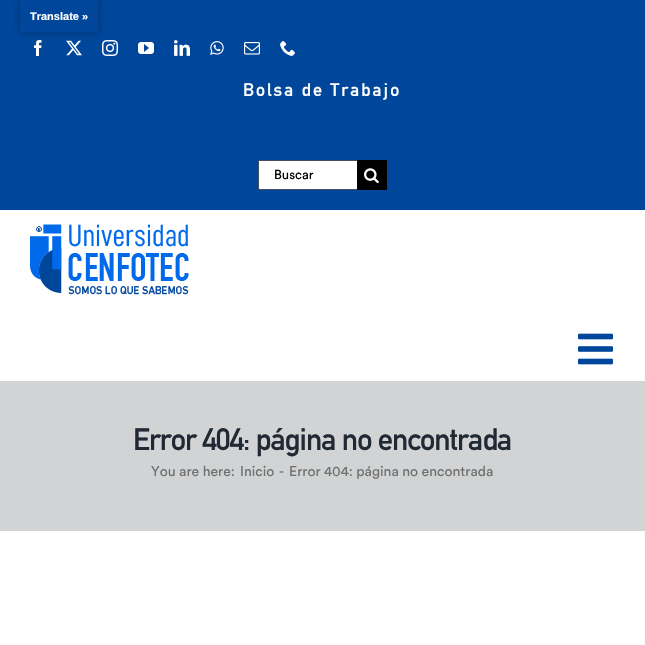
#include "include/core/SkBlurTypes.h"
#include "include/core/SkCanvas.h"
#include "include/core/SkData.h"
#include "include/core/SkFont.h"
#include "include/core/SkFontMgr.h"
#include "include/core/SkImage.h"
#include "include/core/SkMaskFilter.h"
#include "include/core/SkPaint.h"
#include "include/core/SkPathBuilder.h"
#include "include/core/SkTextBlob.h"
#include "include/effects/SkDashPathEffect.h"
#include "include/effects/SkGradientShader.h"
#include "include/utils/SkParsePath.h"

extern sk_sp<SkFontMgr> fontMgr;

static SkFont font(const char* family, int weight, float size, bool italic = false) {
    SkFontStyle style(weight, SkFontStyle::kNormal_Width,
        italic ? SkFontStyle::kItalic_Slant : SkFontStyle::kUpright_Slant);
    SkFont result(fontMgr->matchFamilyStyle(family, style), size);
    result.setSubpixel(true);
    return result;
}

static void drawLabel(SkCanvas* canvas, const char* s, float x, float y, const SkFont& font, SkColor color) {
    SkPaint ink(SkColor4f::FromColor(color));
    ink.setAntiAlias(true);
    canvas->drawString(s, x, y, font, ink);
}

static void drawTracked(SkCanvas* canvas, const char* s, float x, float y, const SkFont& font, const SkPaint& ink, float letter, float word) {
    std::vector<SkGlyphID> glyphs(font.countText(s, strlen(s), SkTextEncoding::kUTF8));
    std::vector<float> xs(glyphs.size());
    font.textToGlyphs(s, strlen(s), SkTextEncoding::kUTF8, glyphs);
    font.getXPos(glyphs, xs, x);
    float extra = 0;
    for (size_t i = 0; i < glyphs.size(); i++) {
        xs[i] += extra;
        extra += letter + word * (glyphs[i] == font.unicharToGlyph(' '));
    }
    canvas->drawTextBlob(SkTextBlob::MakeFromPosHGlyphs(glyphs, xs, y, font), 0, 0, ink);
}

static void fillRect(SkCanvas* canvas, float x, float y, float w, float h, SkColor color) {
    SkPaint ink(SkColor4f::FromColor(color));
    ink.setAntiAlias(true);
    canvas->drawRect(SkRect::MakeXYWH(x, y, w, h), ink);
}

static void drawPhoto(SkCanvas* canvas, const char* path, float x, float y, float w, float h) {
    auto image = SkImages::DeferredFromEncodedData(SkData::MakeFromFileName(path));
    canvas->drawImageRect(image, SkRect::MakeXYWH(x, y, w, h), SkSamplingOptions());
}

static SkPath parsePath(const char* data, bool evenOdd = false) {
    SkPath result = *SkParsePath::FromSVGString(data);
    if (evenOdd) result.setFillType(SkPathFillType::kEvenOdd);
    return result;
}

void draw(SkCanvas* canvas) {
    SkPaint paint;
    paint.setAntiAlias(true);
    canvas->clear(0xFFFFFFFF);
    fillRect(canvas, 0, 0, 645, 210, 0xFF00479B);
    drawPhoto(canvas, "assets/img1.png", 34, 40, 8, 16);
    drawPhoto(canvas, "assets/img2.png", 66, 40, 16, 16);
    drawPhoto(canvas, "assets/img3.png", 102, 40, 16, 16);
    canvas->save();
    canvas->clipPath(parsePath("M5 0H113V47H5ZM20 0H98V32H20Z", true), true);
    paint.setColor(0x4D000000);
    paint.setMaskFilter(SkMaskFilter::MakeBlur(kNormal_SkBlurStyle, 4.5f));
    canvas->drawRect(SkRect::MakeXYWH(20, 0, 78, 32), paint);
    paint.setMaskFilter(nullptr);
    canvas->restore();
    SkFont font1 = font("Liberation Sans", 700, 11);
    drawLabel(canvas, "Translate »", 30, 20, font1, 0xFFFFFFFF);
    drawPhoto(canvas, "assets/img4.png", 138, 42, 16, 12);
    drawPhoto(canvas, "assets/img5.png", 174, 40, 16, 16);
    drawPhoto(canvas, "assets/img6.png", 210, 41, 14, 14);
    drawPhoto(canvas, "assets/img7.png", 244, 42, 16, 13);
    drawPhoto(canvas, "assets/img8.png", 280, 41, 15, 15);
    SkFont font2 = font("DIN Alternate", 700, 18);
    paint.setColor(0xFFFFFFFF);
    drawTracked(canvas, "Bolsa de Trabajo", 243, 96, font2, paint, 2, 0);
    fillRect(canvas, 259, 161, 98, 28, 0xFFFFFFFF);
    fillRect(canvas, 258, 160, 99, 1, 0xFF444D62);
    fillRect(canvas, 258, 189, 99, 1, 0xFF444D62);
    fillRect(canvas, 258, 160, 1, 30, 0xFF444D62);
    SkFont font3 = font("Circular", 400, 13);
    drawLabel(canvas, "Buscar", 274, 179, font3, 0xFF000000);
    fillRect(canvas, 357, 160, 30, 30, 0xFF000000);
    drawPhoto(canvas, "assets/img9.png", 364, 168, 15, 16);
    drawPhoto(canvas, "assets/img10.png", 30, 224, 159, 71);
    drawPhoto(canvas, "assets/img11.png", 578, 333, 35, 32);
    fillRect(canvas, 0, 381, 645, 150, 0xFFD1D3D4);
    SkFont font4 = font("DIN Alternate", 700, 30.5f);
    paint.setColor(0xFF212934);
    drawTracked(canvas, "Error 404: página no encontrada", 133, 450, font4, paint, -1, 0);
    SkFont font5 = font("Circular", 400, 14);
    drawLabel(canvas, "You are here:", 151, 476, font5, 0xFF707070);
    drawLabel(canvas, "Inicio", 240, 476, font5, 0xFF707070);
    drawLabel(canvas, "-", 279, 476, font5, 0xFF707070);
    drawLabel(canvas, "Error 404: página no encontrada", 289, 476, font5, 0xFF707070);
}
